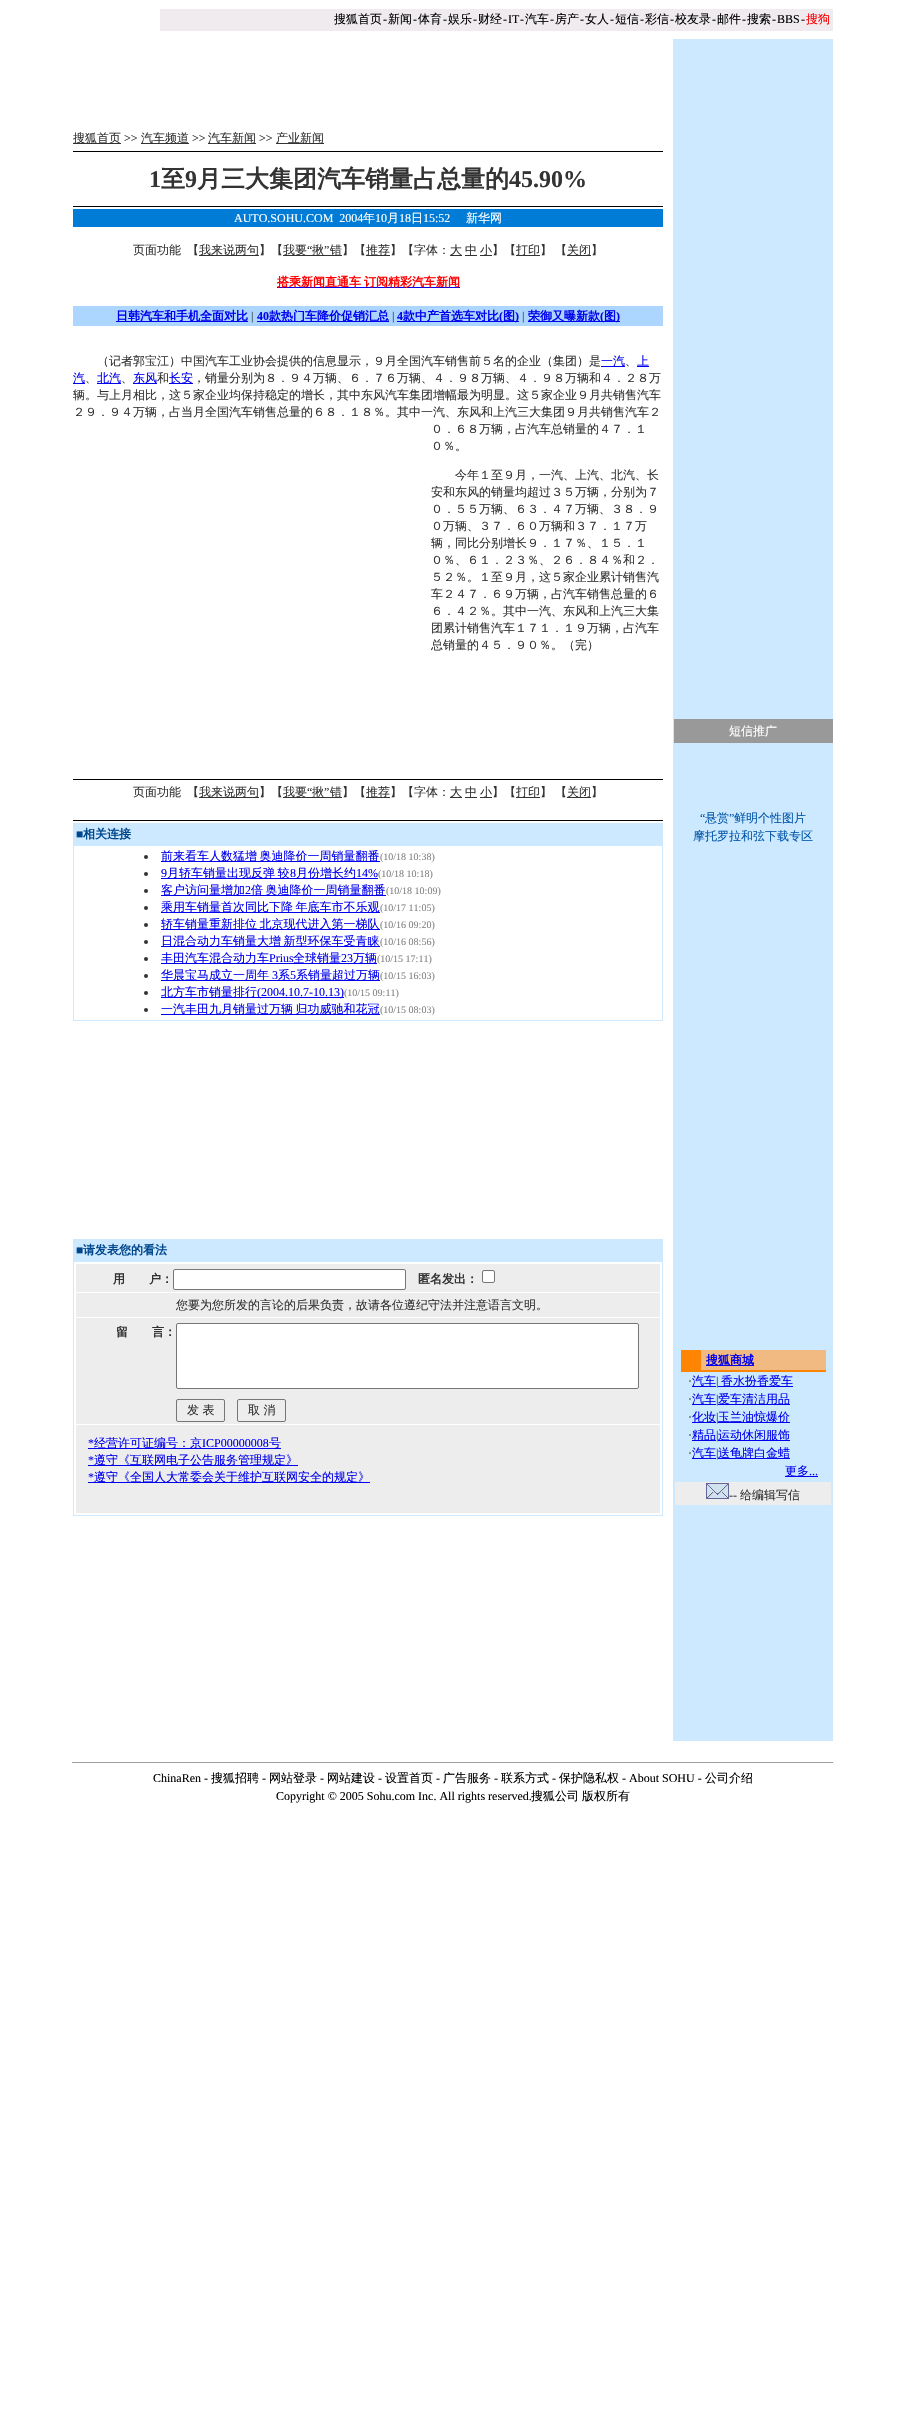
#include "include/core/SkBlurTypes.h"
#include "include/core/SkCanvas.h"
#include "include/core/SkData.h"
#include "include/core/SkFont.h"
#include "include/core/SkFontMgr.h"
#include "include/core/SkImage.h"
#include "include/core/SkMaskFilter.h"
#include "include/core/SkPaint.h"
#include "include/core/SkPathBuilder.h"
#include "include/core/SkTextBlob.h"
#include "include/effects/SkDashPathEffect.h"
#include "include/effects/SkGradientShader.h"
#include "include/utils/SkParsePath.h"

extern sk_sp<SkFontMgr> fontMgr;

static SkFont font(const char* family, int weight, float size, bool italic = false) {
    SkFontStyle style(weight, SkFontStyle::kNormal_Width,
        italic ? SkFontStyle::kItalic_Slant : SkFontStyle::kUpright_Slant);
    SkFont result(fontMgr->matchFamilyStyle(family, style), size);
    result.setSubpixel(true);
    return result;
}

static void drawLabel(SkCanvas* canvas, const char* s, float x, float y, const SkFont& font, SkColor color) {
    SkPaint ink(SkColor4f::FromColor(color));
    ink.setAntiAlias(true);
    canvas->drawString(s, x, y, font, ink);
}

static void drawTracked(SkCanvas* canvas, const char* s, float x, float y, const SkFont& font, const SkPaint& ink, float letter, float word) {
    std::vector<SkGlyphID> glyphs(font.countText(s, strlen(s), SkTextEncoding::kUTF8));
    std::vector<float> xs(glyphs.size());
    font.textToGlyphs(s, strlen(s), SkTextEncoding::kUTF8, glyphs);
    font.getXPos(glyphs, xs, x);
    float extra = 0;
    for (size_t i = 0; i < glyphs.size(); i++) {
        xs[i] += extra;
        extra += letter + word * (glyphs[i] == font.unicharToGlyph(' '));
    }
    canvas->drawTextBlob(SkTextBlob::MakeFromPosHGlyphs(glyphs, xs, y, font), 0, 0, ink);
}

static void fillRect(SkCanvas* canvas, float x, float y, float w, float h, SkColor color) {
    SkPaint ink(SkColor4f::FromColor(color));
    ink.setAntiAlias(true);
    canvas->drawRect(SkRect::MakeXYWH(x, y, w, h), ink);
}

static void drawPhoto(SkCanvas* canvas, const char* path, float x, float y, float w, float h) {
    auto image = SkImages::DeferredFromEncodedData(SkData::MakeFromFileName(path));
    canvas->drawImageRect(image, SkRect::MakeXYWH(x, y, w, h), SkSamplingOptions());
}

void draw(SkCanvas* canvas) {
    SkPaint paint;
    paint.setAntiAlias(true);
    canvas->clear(0xFFFFFFFF);
    fillRect(canvas, 160, 9, 673, 22, 0xFFEFEBEF);
    SkFont font1 = font("WenQuanYi Zen Hei", 500, 12);
    drawLabel(canvas, "搜狐首页", 334, 23, font1, 0xFF000000);
    SkFont font2 = font("Liberation Serif", 400, 12);
    drawLabel(canvas, "-", 383, 23, font2, 0xFF000000);
    drawLabel(canvas, "新闻", 388, 23, font1, 0xFF000000);
    drawLabel(canvas, "-", 413, 23, font2, 0xFF000000);
    drawLabel(canvas, "体育", 418, 23, font1, 0xFF000000);
    drawLabel(canvas, "-", 443, 23, font2, 0xFF000000);
    drawLabel(canvas, "娱乐", 448, 23, font1, 0xFF000000);
    drawLabel(canvas, "-", 473, 23, font2, 0xFF000000);
    drawLabel(canvas, "财经", 478, 23, font1, 0xFF000000);
    drawLabel(canvas, "-", 503, 23, font2, 0xFF000000);
    drawLabel(canvas, "IT", 508, 23, font2, 0xFF000000);
    drawLabel(canvas, "-", 520, 23, font2, 0xFF000000);
    drawLabel(canvas, "汽车", 525, 23, font1, 0xFF000000);
    drawLabel(canvas, "-", 550, 23, font2, 0xFF000000);
    drawLabel(canvas, "房产", 555, 23, font1, 0xFF000000);
    drawLabel(canvas, "-", 580, 23, font2, 0xFF000000);
    drawLabel(canvas, "女人", 585, 23, font1, 0xFF000000);
    drawLabel(canvas, "-", 610, 23, font2, 0xFF000000);
    drawLabel(canvas, "短信", 615, 23, font1, 0xFF000000);
    drawLabel(canvas, "-", 640, 23, font2, 0xFF000000);
    drawLabel(canvas, "彩信", 645, 23, font1, 0xFF000000);
    drawLabel(canvas, "-", 670, 23, font2, 0xFF000000);
    drawLabel(canvas, "校友录", 675, 23, font1, 0xFF000000);
    drawLabel(canvas, "-", 712, 23, font2, 0xFF000000);
    drawLabel(canvas, "邮件", 717, 23, font1, 0xFF000000);
    drawLabel(canvas, "-", 742, 23, font2, 0xFF000000);
    drawLabel(canvas, "搜索", 747, 23, font1, 0xFF000000);
    drawLabel(canvas, "-", 772, 23, font2, 0xFF000000);
    drawLabel(canvas, "BBS", 777, 23, font2, 0xFF000000);
    drawLabel(canvas, "-", 801, 23, font2, 0xFF000000);
    drawLabel(canvas, "搜狗", 806, 23, font1, 0xFFFF0000);
    fillRect(canvas, 73, 143, 48, 1, 0xFF333333);
    drawLabel(canvas, "搜狐首页", 73, 142, font1, 0xFF333333);
    drawLabel(canvas, ">>", 124, 142, font2, 0xFF333333);
    fillRect(canvas, 141, 143, 48, 1, 0xFF333333);
    drawLabel(canvas, "汽车频道", 141, 142, font1, 0xFF333333);
    drawLabel(canvas, ">>", 192, 142, font2, 0xFF333333);
    fillRect(canvas, 208, 143, 48, 1, 0xFF333333);
    drawLabel(canvas, "汽车新闻", 208, 142, font1, 0xFF333333);
    drawLabel(canvas, ">>", 259, 142, font2, 0xFF333333);
    fillRect(canvas, 276, 143, 48, 1, 0xFF333333);
    drawLabel(canvas, "产业新闻", 276, 142, font1, 0xFF333333);
    fillRect(canvas, 73, 151, 590, 1, 0xFF000000);
    SkFont font3 = font("Liberation Serif", 700, 24);
    drawLabel(canvas, "1", 149, 187, font3, 0xFF333333);
    SkFont font4 = font("WenQuanYi Zen Hei", 700, 24);
    drawLabel(canvas, "至", 161, 187, font4, 0xFF333333);
    drawLabel(canvas, "9", 185, 187, font3, 0xFF333333);
    drawLabel(canvas, "月三大集团汽车销量占总量的", 197, 187, font4, 0xFF333333);
    drawLabel(canvas, "45.90%", 509, 187, font3, 0xFF333333);
    fillRect(canvas, 73, 206, 590, 1, 0xFF000000);
    fillRect(canvas, 73, 209, 590, 18, 0xFF007BD6);
    drawLabel(canvas, "AUTO.SOHU.COM  2004", 234, 222, font2, 0xFFFFFFFF);
    drawLabel(canvas, "年", 363, 222, font1, 0xFFFFFFFF);
    drawLabel(canvas, "10", 375, 222, font2, 0xFFFFFFFF);
    drawLabel(canvas, "月", 387, 222, font1, 0xFFFFFFFF);
    drawLabel(canvas, "18", 399, 222, font2, 0xFFFFFFFF);
    drawLabel(canvas, "日", 411, 222, font1, 0xFFFFFFFF);
    drawLabel(canvas, "15:52", 423, 222, font2, 0xFFFFFFFF);
    drawLabel(canvas, "新华网", 466, 222, font1, 0xFFFFFFFF);
    drawLabel(canvas, "页面功能", 133, 254, font1, 0xFF333333);
    drawLabel(canvas, "【", 187, 254, font1, 0xFF333333);
    fillRect(canvas, 199, 255, 60, 1, 0xFF333333);
    drawLabel(canvas, "我来说两句】【", 199, 254, font1, 0xFF333333);
    fillRect(canvas, 283, 255, 59, 1, 0xFF333333);
    drawLabel(canvas, "我要", 283, 254, font1, 0xFF333333);
    drawLabel(canvas, "“", 307, 254, font2, 0xFF333333);
    drawLabel(canvas, "揪", 312, 254, font1, 0xFF333333);
    drawLabel(canvas, "”", 324, 254, font2, 0xFF333333);
    drawLabel(canvas, "错】【", 330, 254, font1, 0xFF333333);
    fillRect(canvas, 366, 255, 24, 1, 0xFF333333);
    drawLabel(canvas, "推荐】【字体：", 366, 254, font1, 0xFF333333);
    fillRect(canvas, 450, 255, 12, 1, 0xFF333333);
    drawLabel(canvas, "大", 450, 254, font1, 0xFF333333);
    fillRect(canvas, 465, 255, 12, 1, 0xFF333333);
    drawLabel(canvas, "中", 465, 254, font1, 0xFF333333);
    fillRect(canvas, 480, 255, 12, 1, 0xFF333333);
    drawLabel(canvas, "小】【", 480, 254, font1, 0xFF333333);
    fillRect(canvas, 516, 255, 24, 1, 0xFF333333);
    drawLabel(canvas, "打印】", 516, 254, font1, 0xFF333333);
    drawLabel(canvas, "【", 555, 254, font1, 0xFF333333);
    fillRect(canvas, 567, 255, 24, 1, 0xFF333333);
    drawLabel(canvas, "关闭】", 567, 254, font1, 0xFF333333);
    fillRect(canvas, 277, 287, 183, 1, 0xFF0000EE);
    SkFont font5 = font("WenQuanYi Zen Hei", 700, 12);
    drawLabel(canvas, "搭乘新闻直通车", 277, 286, font5, 0xFFFF0000);
    drawLabel(canvas, "订阅精彩汽车新闻", 364, 286, font5, 0xFFFF0000);
    fillRect(canvas, 73, 306, 590, 20, 0xFFACD6FF);
    fillRect(canvas, 116, 321, 132, 1, 0xFF0000EE);
    drawLabel(canvas, "日韩汽车和手机全面对比", 116, 320, font5, 0xFF0000EE);
    drawLabel(canvas, "|", 251, 320, font2, 0xFF333333);
    SkFont font6 = font("Liberation Serif", 700, 12);
    drawLabel(canvas, "40", 257, 320, font6, 0xFF0000EE);
    fillRect(canvas, 257, 321, 132, 1, 0xFF0000EE);
    drawLabel(canvas, "款热门车降价促销汇总", 269, 320, font5, 0xFF0000EE);
    drawLabel(canvas, "|", 392, 320, font2, 0xFF333333);
    drawLabel(canvas, "4", 397, 320, font6, 0xFF0000EE);
    fillRect(canvas, 397, 321, 122, 1, 0xFF0000EE);
    drawLabel(canvas, "款中产首选车对比", 403, 320, font5, 0xFF0000EE);
    drawLabel(canvas, "(", 499, 320, font6, 0xFF0000EE);
    drawLabel(canvas, "图", 503, 320, font5, 0xFF0000EE);
    drawLabel(canvas, ")", 515, 320, font6, 0xFF0000EE);
    drawLabel(canvas, "|", 522, 320, font2, 0xFF333333);
    fillRect(canvas, 528, 321, 92, 1, 0xFF0000EE);
    drawLabel(canvas, "荣御又曝新款", 528, 320, font5, 0xFF0000EE);
    drawLabel(canvas, "(", 600, 320, font6, 0xFF0000EE);
    drawLabel(canvas, "图", 604, 320, font5, 0xFF0000EE);
    drawLabel(canvas, ")", 616, 320, font6, 0xFF0000EE);
    drawLabel(canvas, "（记者郭宝江）中国汽车工业协会提供的信息显示，９月全国汽车销售前５名的企业（集团）是", 97, 365, font1, 0xFF333333);
    fillRect(canvas, 601, 366, 24, 1, 0xFF0000EE);
    drawLabel(canvas, "一汽", 601, 365, font1, 0xFF0000EE);
    drawLabel(canvas, "、", 625, 365, font1, 0xFF333333);
    drawLabel(canvas, "上", 637, 365, font1, 0xFF0000EE);
    fillRect(canvas, 637, 366, 12, 1, 0xFF0000EE);
    fillRect(canvas, 73, 383, 12, 1, 0xFF0000EE);
    drawLabel(canvas, "汽", 73, 382, font1, 0xFF0000EE);
    drawLabel(canvas, "、", 85, 382, font1, 0xFF333333);
    fillRect(canvas, 97, 383, 24, 1, 0xFF0000EE);
    drawLabel(canvas, "北汽", 97, 382, font1, 0xFF0000EE);
    drawLabel(canvas, "、", 121, 382, font1, 0xFF333333);
    fillRect(canvas, 133, 383, 24, 1, 0xFF0000EE);
    drawLabel(canvas, "东风", 133, 382, font1, 0xFF0000EE);
    drawLabel(canvas, "和", 157, 382, font1, 0xFF333333);
    fillRect(canvas, 169, 383, 24, 1, 0xFF0000EE);
    drawLabel(canvas, "长安", 169, 382, font1, 0xFF0000EE);
    drawLabel(canvas, "，销量分别为８．９４万辆、６．７６万辆、４．９８万辆、４．９８万辆和４．２８万", 193, 382, font1, 0xFF333333);
    drawLabel(canvas, "辆。与上月相比，这５家企业均保持稳定的增长，其中东风汽车集团增幅最为明显。这５家企业９月共销售汽车", 73, 399, font1, 0xFF333333);
    drawLabel(canvas, "２９．９４万辆，占当月全国汽车销售总量的６８．１８％。其中一汽、东风和上汽三大集团９月共销售汽车２", 73, 416, font1, 0xFF333333);
    drawLabel(canvas, "０．６８万辆，占汽车总销量的４７．１", 431, 433, font1, 0xFF333333);
    drawLabel(canvas, "０％。", 431, 450, font1, 0xFF333333);
    drawLabel(canvas, "今年１至９月，一汽、上汽、北汽、长", 455, 479, font1, 0xFF333333);
    drawLabel(canvas, "安和东风的销量均超过３５万辆，分别为７", 431, 496, font1, 0xFF333333);
    drawLabel(canvas, "０．５５万辆、６３．４７万辆、３８．９", 431, 513, font1, 0xFF333333);
    drawLabel(canvas, "０万辆、３７．６０万辆和３７．１７万", 431, 530, font1, 0xFF333333);
    drawLabel(canvas, "辆，同比分别增长９．１７％、１５．１", 431, 547, font1, 0xFF333333);
    drawLabel(canvas, "０％、６１．２３％、２６．８４％和２．", 431, 564, font1, 0xFF333333);
    drawLabel(canvas, "５２％。１至９月，这５家企业累计销售汽", 431, 581, font1, 0xFF333333);
    drawLabel(canvas, "车２４７．６９万辆，占汽车销售总量的６", 431, 598, font1, 0xFF333333);
    drawLabel(canvas, "６．４２％。其中一汽、东风和上汽三大集", 431, 615, font1, 0xFF333333);
    drawLabel(canvas, "团累计销售汽车１７１．１９万辆，占汽车", 431, 632, font1, 0xFF333333);
    drawLabel(canvas, "总销量的４５．９０％。（完）", 431, 649, font1, 0xFF333333);
    fillRect(canvas, 73, 779, 590, 1, 0xFF000000);
    drawLabel(canvas, "页面功能", 133, 796, font1, 0xFF333333);
    drawLabel(canvas, "【", 187, 796, font1, 0xFF333333);
    fillRect(canvas, 199, 797, 60, 1, 0xFF333333);
    drawLabel(canvas, "我来说两句】【", 199, 796, font1, 0xFF333333);
    fillRect(canvas, 283, 797, 59, 1, 0xFF333333);
    drawLabel(canvas, "我要", 283, 796, font1, 0xFF333333);
    drawLabel(canvas, "“", 307, 796, font2, 0xFF333333);
    drawLabel(canvas, "揪", 312, 796, font1, 0xFF333333);
    drawLabel(canvas, "”", 324, 796, font2, 0xFF333333);
    drawLabel(canvas, "错】【", 330, 796, font1, 0xFF333333);
    fillRect(canvas, 366, 797, 24, 1, 0xFF333333);
    drawLabel(canvas, "推荐】【字体：", 366, 796, font1, 0xFF333333);
    fillRect(canvas, 450, 797, 12, 1, 0xFF333333);
    drawLabel(canvas, "大", 450, 796, font1, 0xFF333333);
    fillRect(canvas, 465, 797, 12, 1, 0xFF333333);
    drawLabel(canvas, "中", 465, 796, font1, 0xFF333333);
    fillRect(canvas, 480, 797, 12, 1, 0xFF333333);
    drawLabel(canvas, "小】【", 480, 796, font1, 0xFF333333);
    fillRect(canvas, 516, 797, 24, 1, 0xFF333333);
    drawLabel(canvas, "打印】", 516, 796, font1, 0xFF333333);
    drawLabel(canvas, "【", 555, 796, font1, 0xFF333333);
    fillRect(canvas, 567, 797, 24, 1, 0xFF333333);
    drawLabel(canvas, "关闭】", 567, 796, font1, 0xFF333333);
    fillRect(canvas, 73, 820, 590, 1, 0xFF000000);
    fillRect(canvas, 73, 823, 590, 198, 0xFFCCE9FF);
    drawLabel(canvas, "■", 76, 838, font2, 0xFF00468C);
    drawLabel(canvas, "相关连接", 83, 838, font5, 0xFF00468C);
    fillRect(canvas, 74, 846, 588, 174, 0xFFFFFFFF);
    paint.setColor(0xFF333333);
    canvas->drawCircle(146, 857, 2, paint);
    fillRect(canvas, 161, 861, 219, 1, 0xFF0000EE);
    paint.setColor(0xFF0000EE);
    drawTracked(canvas, "前来看车人数猛增 奥迪降价一周销量翻番", 161, 860, font1, paint, 0, -1);
    SkFont font7 = font("Liberation Serif", 400, 10);
    drawLabel(canvas, "(10/18 10:38)", 380, 860, font7, 0xFF828282);
    paint.setColor(0xFF333333);
    canvas->drawCircle(146, 874, 2, paint);
    drawLabel(canvas, "9", 161, 877, font2, 0xFF0000EE);
    fillRect(canvas, 161, 878, 217, 1, 0xFF0000EE);
    paint.setColor(0xFF0000EE);
    drawTracked(canvas, "月轿车销量出现反弹 较", 167, 877, font1, paint, 0, -1);
    drawLabel(canvas, "8", 290, 877, font2, 0xFF0000EE);
    drawLabel(canvas, "月份增长约", 296, 877, font1, 0xFF0000EE);
    drawLabel(canvas, "14%", 356, 877, font2, 0xFF0000EE);
    drawLabel(canvas, "(10/18 10:18)", 378, 877, font7, 0xFF828282);
    paint.setColor(0xFF333333);
    canvas->drawCircle(146, 891, 2, paint);
    fillRect(canvas, 161, 895, 225, 1, 0xFF0000EE);
    drawLabel(canvas, "客户访问量增加", 161, 894, font1, 0xFF0000EE);
    drawLabel(canvas, "2", 245, 894, font2, 0xFF0000EE);
    paint.setColor(0xFF0000EE);
    drawTracked(canvas, "倍 奥迪降价一周销量翻番", 251, 894, font1, paint, 0, -1);
    drawLabel(canvas, "(10/18 10:09)", 386, 894, font7, 0xFF828282);
    paint.setColor(0xFF333333);
    canvas->drawCircle(146, 908, 2, paint);
    fillRect(canvas, 161, 912, 219, 1, 0xFF0000EE);
    paint.setColor(0xFF0000EE);
    drawTracked(canvas, "乘用车销量首次同比下降 年底车市不乐观", 161, 911, font1, paint, 0, -1);
    drawLabel(canvas, "(10/17 11:05)", 380, 911, font7, 0xFF828282);
    paint.setColor(0xFF333333);
    canvas->drawCircle(146, 925, 2, paint);
    fillRect(canvas, 161, 929, 219, 1, 0xFF0000EE);
    paint.setColor(0xFF0000EE);
    drawTracked(canvas, "轿车销量重新排位 北京现代进入第一梯队", 161, 928, font1, paint, 0, -1);
    drawLabel(canvas, "(10/16 09:20)", 380, 928, font7, 0xFF828282);
    paint.setColor(0xFF333333);
    canvas->drawCircle(146, 942, 2, paint);
    fillRect(canvas, 161, 946, 219, 1, 0xFF0000EE);
    paint.setColor(0xFF0000EE);
    drawTracked(canvas, "日混合动力车销量大增 新型环保车受青睐", 161, 945, font1, paint, 0, -1);
    drawLabel(canvas, "(10/16 08:56)", 380, 945, font7, 0xFF828282);
    paint.setColor(0xFF333333);
    canvas->drawCircle(146, 959, 2, paint);
    fillRect(canvas, 161, 963, 216, 1, 0xFF0000EE);
    drawLabel(canvas, "丰田汽车混合动力车", 161, 962, font1, 0xFF0000EE);
    drawLabel(canvas, "Prius", 269, 962, font2, 0xFF0000EE);
    drawLabel(canvas, "全球销量", 293, 962, font1, 0xFF0000EE);
    drawLabel(canvas, "23", 341, 962, font2, 0xFF0000EE);
    drawLabel(canvas, "万辆", 353, 962, font1, 0xFF0000EE);
    drawLabel(canvas, "(10/15 17:11)", 377, 962, font7, 0xFF828282);
    canvas->drawCircle(146, 976, 2, paint);
    fillRect(canvas, 161, 980, 219, 1, 0xFF0000EE);
    drawLabel(canvas, "华晨宝马成立一周年", 161, 979, font1, 0xFF0000EE);
    drawLabel(canvas, "3", 272, 979, font2, 0xFF0000EE);
    drawLabel(canvas, "系", 278, 979, font1, 0xFF0000EE);
    drawLabel(canvas, "5", 290, 979, font2, 0xFF0000EE);
    drawLabel(canvas, "系销量超过万辆", 296, 979, font1, 0xFF0000EE);
    drawLabel(canvas, "(10/15 16:03)", 380, 979, font7, 0xFF828282);
    canvas->drawCircle(146, 993, 2, paint);
    fillRect(canvas, 161, 997, 183, 1, 0xFF0000EE);
    drawLabel(canvas, "北方车市销量排行", 161, 996, font1, 0xFF0000EE);
    drawLabel(canvas, "(2004.10.7-10.13)", 257, 996, font2, 0xFF0000EE);
    drawLabel(canvas, "(10/15 09:11)", 344, 996, font7, 0xFF828282);
    canvas->drawCircle(146, 1010, 2, paint);
    fillRect(canvas, 161, 1014, 219, 1, 0xFF0000EE);
    paint.setColor(0xFF0000EE);
    drawTracked(canvas, "一汽丰田九月销量过万辆 归功威驰和花冠", 161, 1013, font1, paint, 0, -1);
    drawLabel(canvas, "(10/15 08:03)", 380, 1013, font7, 0xFF828282);
    fillRect(canvas, 73, 1239, 590, 277, 0xFFCCE9FF);
    drawLabel(canvas, "■", 76, 1254, font2, 0xFF00468C);
    drawLabel(canvas, "请发表您的看法", 83, 1254, font5, 0xFF00468C);
    fillRect(canvas, 74, 1262, 588, 253, 0xFFFFFFFF);
    fillRect(canvas, 76, 1264, 584, 249, 0xFFEDEDED);
    drawLabel(canvas, "用　　户：", 113, 1283, font5, 0xFF333333);
    paint.setColor(0xFFFFFFFF);
    canvas->drawRoundRect(SkRect::MakeXYWH(173.5f, 1269.5f, 232, 20), 1.5f, 1.5f, paint);
    paint.setStroke(true);
    paint.setStrokeWidth(1);
    paint.setColor(0xFF767676);
    canvas->drawRoundRect(SkRect::MakeXYWH(173.5f, 1269.5f, 232, 20), 1.5f, 1.5f, paint);
    drawLabel(canvas, "匿名发出：", 418, 1283, font5, 0xFF333333);
    paint.setStroke(false);
    paint.setColor(0xFFFFFFFF);
    canvas->drawRoundRect(SkRect::MakeXYWH(482.5f, 1270.5f, 12, 12), 1.5f, 1.5f, paint);
    paint.setStroke(true);
    paint.setColor(0xFF767676);
    canvas->drawRoundRect(SkRect::MakeXYWH(482.5f, 1270.5f, 12, 12), 1.5f, 1.5f, paint);
    fillRect(canvas, 76, 1292, 584, 1, 0xFFFFFFFF);
    drawLabel(canvas, "您要为您所发的言论的后果负责，故请各位遵纪守法并注意语言文明。", 176, 1309, font1, 0xFF333333);
    fillRect(canvas, 76, 1317, 584, 1, 0xFFFFFFFF);
    drawLabel(canvas, "留　　言：", 116, 1336, font5, 0xFF333333);
    paint.setStroke(false);
    paint.setColor(0xFFFFFFFF);
    canvas->drawRoundRect(SkRect::MakeXYWH(176.5f, 1323.5f, 462, 65), 1.5f, 1.5f, paint);
    paint.setStroke(true);
    paint.setColor(0xFF767676);
    canvas->drawRoundRect(SkRect::MakeXYWH(176.5f, 1323.5f, 462, 65), 1.5f, 1.5f, paint);
    canvas->drawRoundRect(SkRect::MakeXYWH(176.5f, 1399.5f, 48, 22), 1.5f, 1.5f, paint);
    drawLabel(canvas, "发 表", 187, 1414, font1, 0xFF333333);
    canvas->drawRoundRect(SkRect::MakeXYWH(237.5f, 1399.5f, 48, 22), 1.5f, 1.5f, paint);
    drawLabel(canvas, "取 消", 248, 1414, font1, 0xFF333333);
    fillRect(canvas, 76, 1424, 584, 1, 0xFFFFFFFF);
    drawLabel(canvas, "*", 88, 1447, font2, 0xFF0000EE);
    fillRect(canvas, 88, 1448, 193, 1, 0xFF0000EE);
    drawLabel(canvas, "经营许可证编号：京", 94, 1447, font1, 0xFF0000EE);
    drawLabel(canvas, "ICP00000008", 202, 1447, font2, 0xFF0000EE);
    drawLabel(canvas, "号", 269, 1447, font1, 0xFF0000EE);
    drawLabel(canvas, "*", 88, 1464, font2, 0xFF0000EE);
    fillRect(canvas, 88, 1465, 210, 1, 0xFF0000EE);
    drawLabel(canvas, "遵守《互联网电子公告服务管理规定》", 94, 1464, font1, 0xFF0000EE);
    drawLabel(canvas, "*", 88, 1481, font2, 0xFF0000EE);
    fillRect(canvas, 88, 1482, 282, 1, 0xFF0000EE);
    drawLabel(canvas, "遵守《全国人大常委会关于维护互联网安全的规定》", 94, 1481, font1, 0xFF0000EE);
    fillRect(canvas, 673, 39, 160, 1702, 0xFFCCE9FF);
    fillRect(canvas, 674, 719, 159, 24, 0xFF999999);
    drawLabel(canvas, "短信推广", 729, 735, font1, 0xFFFFFFFF);
    drawLabel(canvas, "“", 700, 822, font2, 0xFF0055AA);
    drawLabel(canvas, "悬赏", 705, 822, font1, 0xFF0055AA);
    drawLabel(canvas, "”", 729, 822, font2, 0xFF0055AA);
    drawLabel(canvas, "鲜明个性图片", 734, 822, font1, 0xFF0055AA);
    drawLabel(canvas, "摩托罗拉和弦下载专区", 693, 840, font1, 0xFF0055AA);
    fillRect(canvas, 681, 1350, 20, 20, 0xFFFE8503);
    fillRect(canvas, 701, 1350, 125, 20, 0xFFF0BA82);
    fillRect(canvas, 706, 1365, 48, 1, 0xFF0000EE);
    drawLabel(canvas, "搜狐商城", 706, 1364, font5, 0xFF0000EE);
    fillRect(canvas, 681, 1370, 145, 2, 0xFFFE8503);
    drawLabel(canvas, "·", 688, 1385, font2, 0xFF333333);
    fillRect(canvas, 692, 1386, 24, 1, 0xFF0000EE);
    drawLabel(canvas, "汽车", 692, 1385, font1, 0xFF0000EE);
    drawLabel(canvas, "|", 716, 1385, font2, 0xFF333333);
    fillRect(canvas, 718, 1386, 75, 1, 0xFF0000EE);
    drawLabel(canvas, "香水扮香爱车", 721, 1385, font1, 0xFF0000EE);
    drawLabel(canvas, "·", 688, 1403, font2, 0xFF333333);
    fillRect(canvas, 692, 1404, 24, 1, 0xFF0000EE);
    drawLabel(canvas, "汽车", 692, 1403, font1, 0xFF0000EE);
    drawLabel(canvas, "|", 716, 1403, font2, 0xFF333333);
    fillRect(canvas, 718, 1404, 72, 1, 0xFF0000EE);
    drawLabel(canvas, "爱车清洁用品", 718, 1403, font1, 0xFF0000EE);
    drawLabel(canvas, "·", 688, 1421, font2, 0xFF333333);
    fillRect(canvas, 692, 1422, 24, 1, 0xFF0000EE);
    drawLabel(canvas, "化妆", 692, 1421, font1, 0xFF0000EE);
    drawLabel(canvas, "|", 716, 1421, font2, 0xFF333333);
    fillRect(canvas, 718, 1422, 72, 1, 0xFF0000EE);
    drawLabel(canvas, "玉兰油惊爆价", 718, 1421, font1, 0xFF0000EE);
    drawLabel(canvas, "·", 688, 1439, font2, 0xFF333333);
    fillRect(canvas, 692, 1440, 24, 1, 0xFF0000EE);
    drawLabel(canvas, "精品", 692, 1439, font1, 0xFF0000EE);
    drawLabel(canvas, "|", 716, 1439, font2, 0xFF333333);
    fillRect(canvas, 718, 1440, 72, 1, 0xFF0000EE);
    drawLabel(canvas, "运动休闲服饰", 718, 1439, font1, 0xFF0000EE);
    drawLabel(canvas, "·", 688, 1457, font2, 0xFF333333);
    fillRect(canvas, 692, 1458, 24, 1, 0xFF0000EE);
    drawLabel(canvas, "汽车", 692, 1457, font1, 0xFF0000EE);
    drawLabel(canvas, "|", 716, 1457, font2, 0xFF333333);
    fillRect(canvas, 718, 1458, 72, 1, 0xFF0000EE);
    drawLabel(canvas, "送龟牌白金蜡", 718, 1457, font1, 0xFF0000EE);
    fillRect(canvas, 785, 1476, 33, 1, 0xFF0000EE);
    drawLabel(canvas, "更多", 785, 1475, font1, 0xFF0000EE);
    drawLabel(canvas, "...", 809, 1475, font2, 0xFF0000EE);
    fillRect(canvas, 675, 1482, 156, 23, 0xFFEDEDED);
    drawPhoto(canvas, "assets/img1.png", 706, 1483, 23, 16);
    drawLabel(canvas, "--", 729, 1499, font2, 0xFF333333);
    drawLabel(canvas, "给编辑写信", 740, 1499, font1, 0xFF333333);
    fillRect(canvas, 72, 1762, 762, 1, 0xFF9F9F9F);
    fillRect(canvas, 833, 1762, 1, 1, 0xFFEEEEEE);
    drawLabel(canvas, "ChinaRen -", 153, 1782, font2, 0xFF000000);
    drawLabel(canvas, "搜狐招聘", 211, 1782, font1, 0xFF000000);
    drawLabel(canvas, "-", 262, 1782, font2, 0xFF000000);
    drawLabel(canvas, "网站登录", 269, 1782, font1, 0xFF000000);
    drawLabel(canvas, "-", 320, 1782, font2, 0xFF000000);
    drawLabel(canvas, "网站建设", 327, 1782, font1, 0xFF000000);
    drawLabel(canvas, "-", 378, 1782, font2, 0xFF000000);
    drawLabel(canvas, "设置首页", 385, 1782, font1, 0xFF000000);
    drawLabel(canvas, "-", 436, 1782, font2, 0xFF000000);
    drawLabel(canvas, "广告服务", 443, 1782, font1, 0xFF000000);
    drawLabel(canvas, "-", 494, 1782, font2, 0xFF000000);
    drawLabel(canvas, "联系方式", 501, 1782, font1, 0xFF000000);
    drawLabel(canvas, "-", 552, 1782, font2, 0xFF000000);
    drawLabel(canvas, "保护隐私权", 559, 1782, font1, 0xFF000000);
    drawLabel(canvas, "- About SOHU -", 622, 1782, font2, 0xFF000000);
    drawLabel(canvas, "公司介绍", 705, 1782, font1, 0xFF000000);
    drawLabel(canvas, "Copyright © 2005 Sohu.com Inc. All rights reserved.", 276, 1800, font2, 0xFF000000);
    drawLabel(canvas, "搜狐公司", 531, 1800, font1, 0xFF000000);
    drawLabel(canvas, "版权所有", 582, 1800, font1, 0xFF000000);
}
